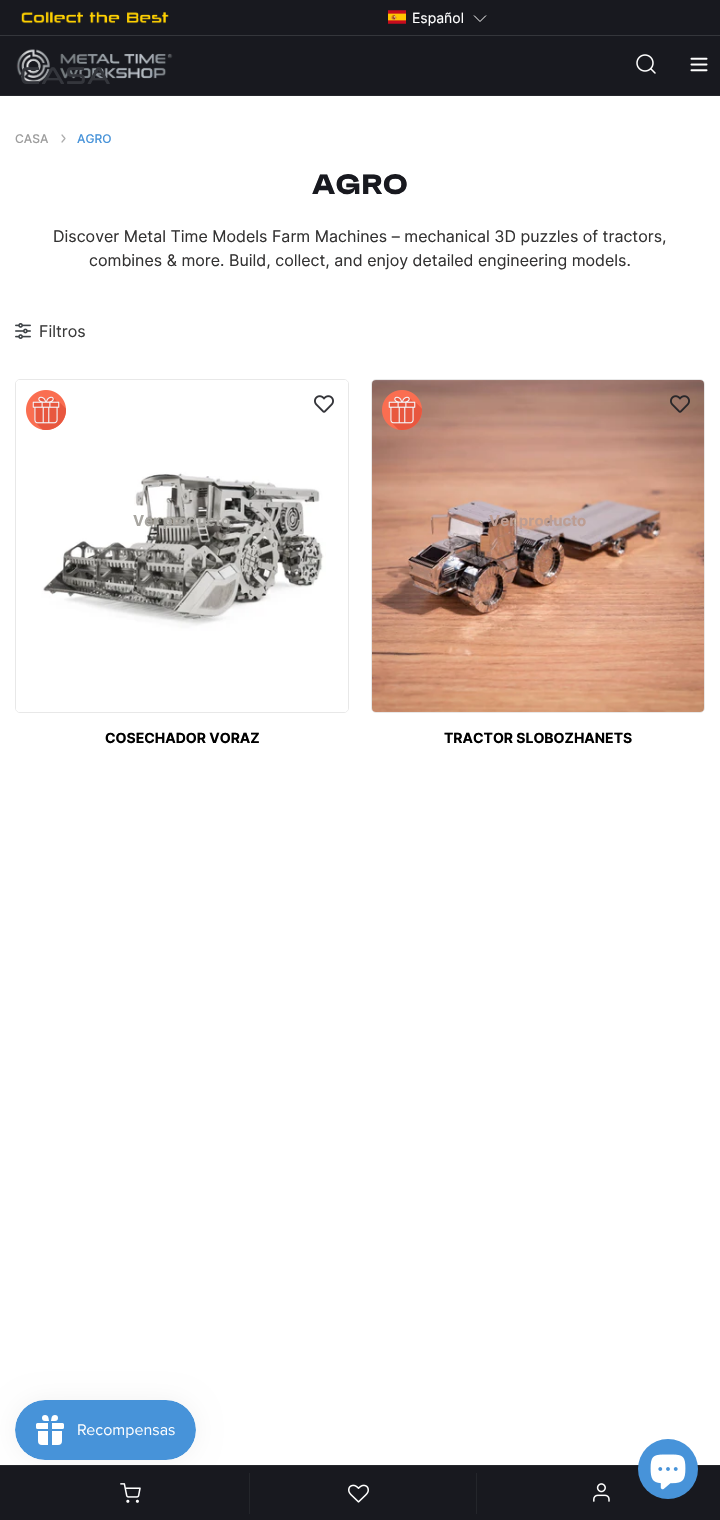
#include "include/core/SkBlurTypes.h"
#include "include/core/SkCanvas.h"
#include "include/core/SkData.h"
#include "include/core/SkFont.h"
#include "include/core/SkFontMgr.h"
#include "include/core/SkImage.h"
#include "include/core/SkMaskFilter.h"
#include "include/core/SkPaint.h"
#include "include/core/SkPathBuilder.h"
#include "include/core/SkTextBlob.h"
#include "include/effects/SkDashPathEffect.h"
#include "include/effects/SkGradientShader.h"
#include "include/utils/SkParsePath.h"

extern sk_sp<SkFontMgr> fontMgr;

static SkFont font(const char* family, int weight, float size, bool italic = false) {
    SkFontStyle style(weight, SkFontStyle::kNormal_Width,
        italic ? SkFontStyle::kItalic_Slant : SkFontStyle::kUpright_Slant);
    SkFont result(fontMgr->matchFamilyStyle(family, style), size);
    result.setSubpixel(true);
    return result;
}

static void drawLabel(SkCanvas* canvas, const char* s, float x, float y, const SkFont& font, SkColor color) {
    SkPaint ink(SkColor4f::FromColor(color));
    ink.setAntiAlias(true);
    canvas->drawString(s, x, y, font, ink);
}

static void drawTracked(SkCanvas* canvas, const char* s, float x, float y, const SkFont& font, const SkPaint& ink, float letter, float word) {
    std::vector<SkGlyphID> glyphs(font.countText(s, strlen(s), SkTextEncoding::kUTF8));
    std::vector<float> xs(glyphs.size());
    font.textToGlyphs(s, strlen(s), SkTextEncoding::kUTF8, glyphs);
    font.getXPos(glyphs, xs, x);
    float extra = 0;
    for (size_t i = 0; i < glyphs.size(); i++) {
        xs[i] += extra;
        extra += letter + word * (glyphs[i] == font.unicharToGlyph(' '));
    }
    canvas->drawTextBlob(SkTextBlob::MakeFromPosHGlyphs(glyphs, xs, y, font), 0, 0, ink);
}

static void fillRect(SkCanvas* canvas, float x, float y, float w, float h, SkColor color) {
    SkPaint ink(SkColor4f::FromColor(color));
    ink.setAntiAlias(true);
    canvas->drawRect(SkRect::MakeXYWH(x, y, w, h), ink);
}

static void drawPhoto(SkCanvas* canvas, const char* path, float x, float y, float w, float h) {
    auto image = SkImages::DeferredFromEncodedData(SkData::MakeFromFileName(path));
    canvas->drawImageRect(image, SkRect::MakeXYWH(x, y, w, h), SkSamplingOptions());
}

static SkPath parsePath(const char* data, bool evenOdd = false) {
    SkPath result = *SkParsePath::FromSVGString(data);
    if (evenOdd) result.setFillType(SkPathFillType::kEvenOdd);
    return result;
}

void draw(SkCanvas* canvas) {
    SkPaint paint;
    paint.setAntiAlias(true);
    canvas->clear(0xFFFFFFFF);
    fillRect(canvas, 0, 0, 720, 35, 0xFF18191F);
    fillRect(canvas, 0, 35, 720, 1, 0xFF34363B);
    drawPhoto(canvas, "assets/img1.png", 21, 11, 148, 13);
    drawPhoto(canvas, "assets/img2.png", 388, 10, 18, 14);
    SkFont font1 = font("Inter", 400, 14);
    drawLabel(canvas, "Español", 412, 23, font1, 0xFFFFFFFF);
    paint.setStroke(true);
    paint.setStrokeWidth(1);
    paint.setColor(0xFFFFFFFF);
    canvas->drawPath(parsePath("M474 15.5L480 21.5L486 15.5"), paint);
    fillRect(canvas, 0, 36, 720, 59, 0xFF18191F);
    fillRect(canvas, 0, 95, 720, 1, 0xFF24262B);
    drawPhoto(canvas, "assets/img3.png", 636, 54, 20, 20);
    drawPhoto(canvas, "assets/img4.png", 690, 57, 18, 15);
    fillRect(canvas, 0, 1466, 720, 54, 0xFF18191F);
    fillRect(canvas, 0, 1465, 720, 1, 0xFF24262B);
    fillRect(canvas, 249, 1473, 1, 41, 0xFF24262B);
    drawPhoto(canvas, "assets/img5.png", 120, 1483, 21, 20);
    fillRect(canvas, 476, 1473, 1, 41, 0xFF24262B);
    drawPhoto(canvas, "assets/img6.png", 348, 1484, 21, 19);
    drawPhoto(canvas, "assets/img7.png", 593, 1483, 17, 19);
    drawPhoto(canvas, "assets/img8.png", 16, 49, 157, 34);
    SkFont font2 = font("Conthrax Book", 700, 23);
    paint.setStroke(false);
    paint.setColor(0xFF34363C);
    drawTracked(canvas, "CASA", 20, 84, font2, paint, 2, 0);
    SkFont font3 = font("Inter", 500, 12);
    drawLabel(canvas, "CASA", 15, 143, font3, 0xFF9D9D9D);
    paint.setStroke(true);
    paint.setStrokeWidth(1.2f);
    paint.setStrokeCap(SkPaint::kRound_Cap);
    paint.setStrokeJoin(SkPaint::kRound_Join);
    paint.setColor(0xFFADADAD);
    canvas->drawPath(parsePath("M62 142L65 138.5L62 135"), paint);
    drawLabel(canvas, "AGRO", 77, 143, font3, 0xFF4793D9);
    SkFont font4 = font("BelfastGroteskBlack", 900, 28);
    paint.setStroke(false);
    paint.setColor(0xFF18191F);
    drawTracked(canvas, "AGRO", 312, 194, font4, paint, 0.5f, 0);
    SkFont font5 = font("Inter", 400, 16);
    drawLabel(canvas, "Discover Metal Time Models Farm Machines – mechanical 3D puzzles of tractors,", 53, 242, font5, 0xFF333232);
    drawLabel(canvas, "combines & more. Build, collect, and enjoy detailed engineering models.", 89, 266, font5, 0xFF333232);
    drawPhoto(canvas, "assets/img9.png", 15, 323, 16, 16);
    drawLabel(canvas, "Filtros", 39, 337, font5, 0xFF3A3A3A);
    paint.setStroke(true);
    paint.setStrokeWidth(1);
    paint.setStrokeCap(SkPaint::kButt_Cap);
    paint.setStrokeJoin(SkPaint::kMiter_Join);
    paint.setColor(0xFFE8E8E8);
    canvas->drawRoundRect(SkRect::MakeXYWH(15.5f, 379.5f, 333, 333), 4.5f, 4.5f, paint);
    drawPhoto(canvas, "assets/img10.png", 16, 380, 332, 332);
    drawPhoto(canvas, "assets/img11.png", 26, 390, 40, 40);
    drawPhoto(canvas, "assets/img12.png", 314, 395, 20, 18);
    SkFont font6 = font("Inter", 700, 15);
    drawLabel(canvas, "Ver producto", 133, 526, font6, 0xFFA7A5A0);
    SkFont font7 = font("Inter", 700, 14);
    drawLabel(canvas, "COSECHADOR VORAZ", 105, 743, font7, 0xFF000000);
    canvas->drawRoundRect(SkRect::MakeXYWH(371.5f, 379.5f, 333, 333), 4.5f, 4.5f, paint);
    drawPhoto(canvas, "assets/img13.png", 372, 380, 332, 332);
    drawPhoto(canvas, "assets/img14.png", 382, 390, 40, 40);
    drawPhoto(canvas, "assets/img15.png", 670, 395, 20, 18);
    drawLabel(canvas, "Ver producto", 489, 526, font6, 0xFFBD9D92);
    drawLabel(canvas, "TRACTOR SLOBOZHANETS", 444, 743, font7, 0xFF000000);
    paint.setStroke(false);
    paint.setColor(0x0D000000);
    paint.setMaskFilter(SkMaskFilter::MakeBlur(kNormal_SkBlurStyle, 12.5f));
    canvas->drawRoundRect(SkRect::MakeXYWH(15, 1400, 181, 60), 30, 30, paint);
    paint.setMaskFilter(nullptr);
    drawPhoto(canvas, "assets/img16.png", 15, 1400, 181, 60);
    paint.setColor(0xFF4793D9);
    canvas->drawCircle(668, 1469, 30, paint);
    drawPhoto(canvas, "assets/img17.png", 650, 1454, 36, 36);
}
